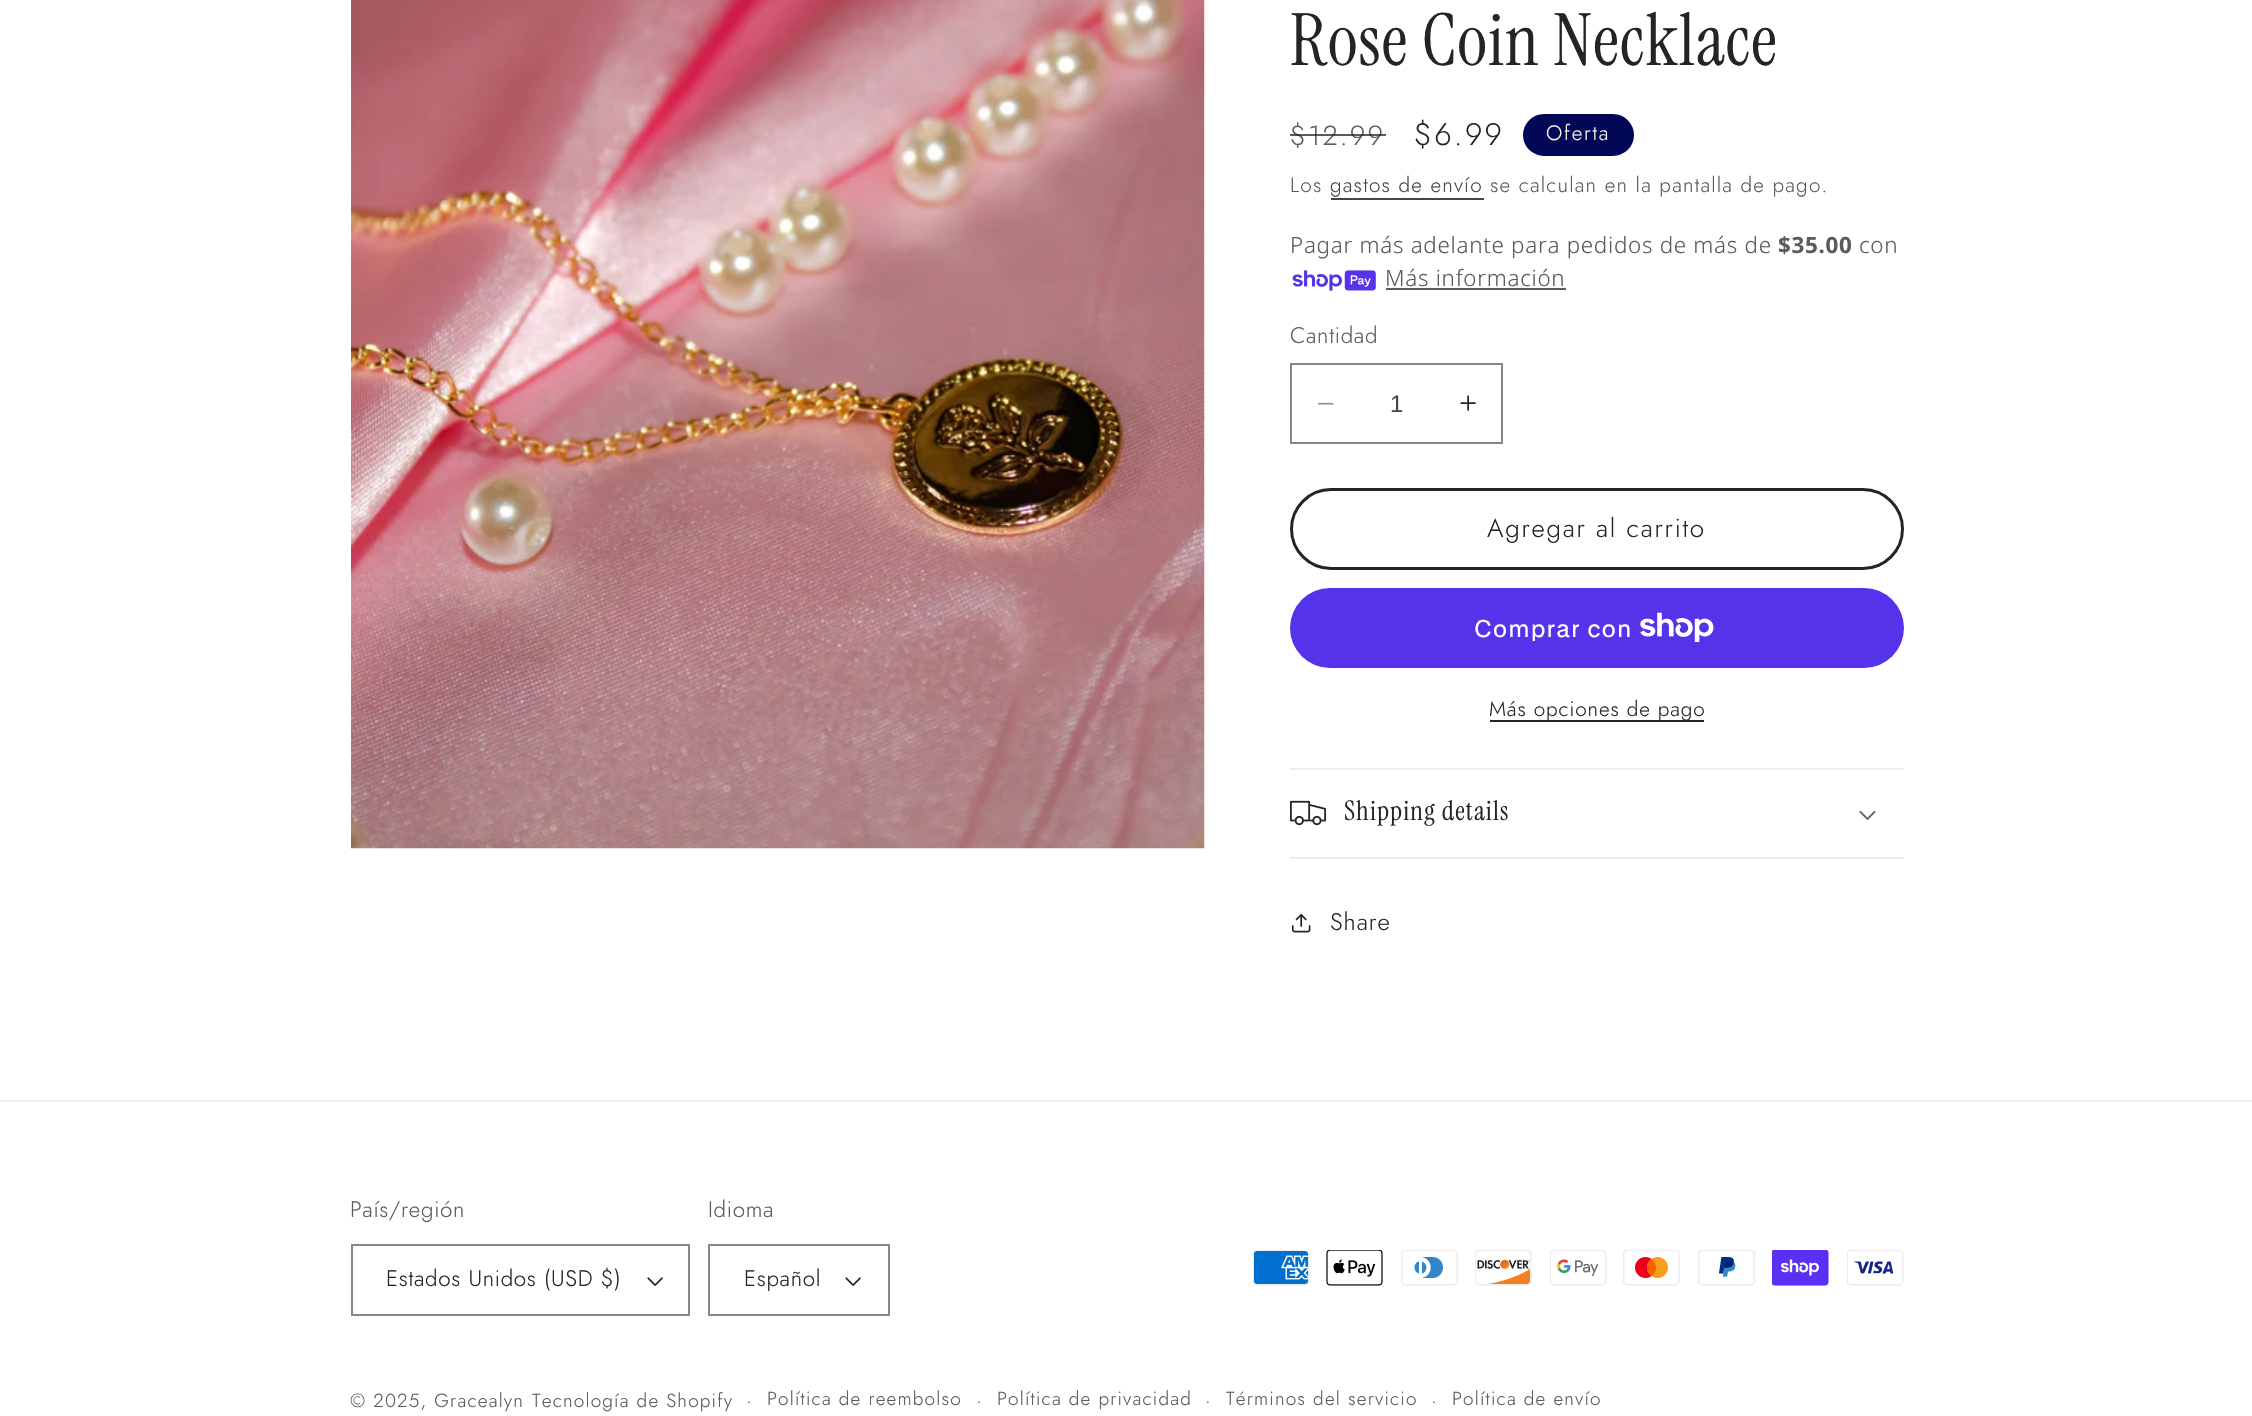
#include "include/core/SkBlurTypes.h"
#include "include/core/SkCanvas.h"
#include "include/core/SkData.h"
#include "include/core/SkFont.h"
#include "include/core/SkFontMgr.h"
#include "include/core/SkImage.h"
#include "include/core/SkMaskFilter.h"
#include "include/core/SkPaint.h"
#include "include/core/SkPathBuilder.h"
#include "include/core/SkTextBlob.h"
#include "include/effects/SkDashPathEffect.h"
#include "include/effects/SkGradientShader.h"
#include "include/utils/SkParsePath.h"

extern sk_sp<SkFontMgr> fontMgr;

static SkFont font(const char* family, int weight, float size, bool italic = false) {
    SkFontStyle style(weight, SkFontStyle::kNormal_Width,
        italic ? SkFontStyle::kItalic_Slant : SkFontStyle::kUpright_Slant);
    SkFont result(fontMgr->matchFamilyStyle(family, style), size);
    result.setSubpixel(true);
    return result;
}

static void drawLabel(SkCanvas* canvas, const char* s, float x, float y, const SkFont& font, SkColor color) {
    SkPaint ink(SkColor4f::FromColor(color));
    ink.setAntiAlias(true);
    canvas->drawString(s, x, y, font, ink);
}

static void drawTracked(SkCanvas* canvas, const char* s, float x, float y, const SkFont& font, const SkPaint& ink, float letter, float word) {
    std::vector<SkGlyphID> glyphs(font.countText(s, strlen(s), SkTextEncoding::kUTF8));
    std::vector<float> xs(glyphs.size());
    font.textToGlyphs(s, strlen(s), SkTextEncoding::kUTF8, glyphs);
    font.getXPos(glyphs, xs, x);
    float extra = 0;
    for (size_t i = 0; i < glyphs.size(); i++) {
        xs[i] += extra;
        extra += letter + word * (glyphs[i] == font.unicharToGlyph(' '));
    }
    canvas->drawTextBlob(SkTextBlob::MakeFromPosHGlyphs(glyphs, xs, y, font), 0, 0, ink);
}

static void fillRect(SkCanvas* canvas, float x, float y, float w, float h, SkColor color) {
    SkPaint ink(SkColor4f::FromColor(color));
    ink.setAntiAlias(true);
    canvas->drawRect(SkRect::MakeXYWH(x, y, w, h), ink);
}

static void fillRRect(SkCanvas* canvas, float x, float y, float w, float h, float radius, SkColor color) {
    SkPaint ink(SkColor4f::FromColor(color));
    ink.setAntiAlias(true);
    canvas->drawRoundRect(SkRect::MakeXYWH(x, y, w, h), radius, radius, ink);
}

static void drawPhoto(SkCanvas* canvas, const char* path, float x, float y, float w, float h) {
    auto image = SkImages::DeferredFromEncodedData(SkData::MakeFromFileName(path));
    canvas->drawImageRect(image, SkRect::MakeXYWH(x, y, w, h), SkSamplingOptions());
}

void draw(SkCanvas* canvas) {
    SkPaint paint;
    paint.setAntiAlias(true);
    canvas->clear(0xFFFFFFFF);
    drawPhoto(canvas, "assets/img1.png", 351, 0, 854, 849);
    SkFont font1 = font("Instrument Serif", 400, 72);
    paint.setColor(0xFF242424);
    drawTracked(canvas, "Rose Coin Necklace", 1290, 65, font1, paint, 1.1f, 0);
    SkFont font2 = font("Jost", 300, 27.5f);
    paint.setColor(0xFF5B5B5B);
    drawTracked(canvas, "$12.99", 1290, 145, font2, paint, 2.25f, 0);
    fillRect(canvas, 1290, 134, 96, 2, 0xBF242424);
    SkFont font3 = font("Jost", 300, 31);
    paint.setColor(0xFF242424);
    drawTracked(canvas, "$6.99", 1414, 145, font3, paint, 2.25f, 0);
    paint.setColor(0xFF030856);
    canvas->drawRoundRect(SkRect::MakeXYWH(1524, 115, 109, 40), 20, 20, paint);
    paint.setStroke(true);
    paint.setStrokeWidth(2);
    canvas->drawRoundRect(SkRect::MakeXYWH(1524, 115, 109, 40), 20, 20, paint);
    SkFont font4 = font("Jost", 300, 20.75f);
    paint.setStroke(false);
    paint.setColor(0xFFF7F6EB);
    drawTracked(canvas, "Oferta", 1546, 140, font4, paint, 1.75f, 0);
    paint.setColor(0xFF5B5B5B);
    drawTracked(canvas, "Los", 1290, 192, font4, paint, 1.2f, 0);
    paint.setColor(0xFF454545);
    drawTracked(canvas, "gastos de envío", 1330, 192, font4, paint, 1.2f, 0);
    fillRect(canvas, 1331, 198, 153, 2, 0xFF454545);
    paint.setColor(0xFF5B5B5B);
    drawTracked(canvas, "se calculan en la pantalla de pago.", 1490, 192, font4, paint, 1.2f, 0);
    SkFont font5 = font("Noto Sans", 300, 22.4f);
    drawTracked(canvas, "Pagar más adelante para pedidos de más de", 1290, 253, font5, paint, 0.7f, 0);
    SkFont font6 = font("Noto Sans", 700, 22.4f);
    drawTracked(canvas, "$35.00", 1778, 253, font6, paint, 0.7f, 0);
    drawTracked(canvas, "con", 1859, 253, font5, paint, 0.7f, 0);
    drawPhoto(canvas, "assets/img2.png", 1292, 270, 84, 21);
    drawTracked(canvas, "Más información", 1385, 286, font5, paint, 0.7f, 0);
    fillRect(canvas, 1386, 288, 180, 2, 0xFF5B5B5B);
    SkFont font7 = font("Jost", 300, 22.4f);
    drawTracked(canvas, "Cantidad", 1290, 343, font7, paint, 0.7f, 0);
    drawPhoto(canvas, "assets/img3.png", 1318, 402, 16, 3);
    drawPhoto(canvas, "assets/img4.png", 1460, 395, 16, 16);
    paint.setStroke(true);
    paint.setColor(0xFF878787);
    canvas->drawRect(SkRect::MakeXYWH(1291, 364, 211, 79), paint);
    SkFont font8 = font("Liberation Sans", 400, 24);
    drawLabel(canvas, "1", 1390, 412, font8, 0xFF454545);
    paint.setStrokeWidth(3);
    paint.setColor(0xFF242424);
    canvas->drawRoundRect(SkRect::MakeXYWH(1291.5f, 489.5f, 611, 79), 39.5f, 39.5f, paint);
    SkFont font9 = font("Jost", 300, 25.9f);
    paint.setStroke(false);
    drawTracked(canvas, "Agregar al carrito", 1487, 537, font9, paint, 1.75f, 0);
    fillRRect(canvas, 1290, 588, 614, 80, 40, 0xFF5433EB);
    SkFont font10 = font("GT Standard", 400, 24);
    paint.setColor(0xFFFFFFFF);
    drawTracked(canvas, "Comprar con", 1474, 637, font10, paint, 1, 0);
    drawPhoto(canvas, "assets/img5.png", 1640, 612, 74, 30);
    fillRect(canvas, 1490, 720, 214, 2, 0xFF242424);
    paint.setColor(0xFF242424);
    drawTracked(canvas, "Más opciones de pago", 1489, 716, font4, paint, 0.9f, 0);
    fillRect(canvas, 1290, 768, 614, 2, 0xFFEDEDED);
    fillRect(canvas, 1290, 857, 614, 2, 0xFFEDEDED);
    drawPhoto(canvas, "assets/img6.png", 1290, 800, 36, 26);
    SkFont font11 = font("Instrument Serif", 400, 27);
    drawTracked(canvas, "Shipping details", 1344, 820, font11, paint, 1.1f, 0);
    drawPhoto(canvas, "assets/img7.png", 1859, 811, 17, 9);
    drawPhoto(canvas, "assets/img8.png", 1291, 914, 20, 19);
    SkFont font12 = font("Jost", 300, 24);
    drawTracked(canvas, "Share", 1330, 930, font12, paint, 1, 0);
    fillRect(canvas, 0, 1100, 2252, 2, 0xFFEDEDED);
    paint.setColor(0xFF5B5B5B);
    drawTracked(canvas, "País/región", 350, 1217, font7, paint, 0.7f, 0);
    drawPhoto(canvas, "assets/img9.png", 647, 1277, 16, 9);
    paint.setStroke(true);
    paint.setStrokeWidth(2);
    paint.setColor(0xFF878787);
    canvas->drawRect(SkRect::MakeXYWH(352, 1245, 337, 70), paint);
    paint.setStroke(false);
    paint.setColor(0xFF242424);
    drawTracked(canvas, "Estados Unidos (USD $)", 386, 1286, font7, paint, 0.7f, 0);
    paint.setColor(0xFF5B5B5B);
    drawTracked(canvas, "Idioma", 708, 1217, font7, paint, 0.7f, 0);
    drawPhoto(canvas, "assets/img9.png", 845, 1277, 16, 9);
    paint.setStroke(true);
    paint.setColor(0xFF878787);
    canvas->drawRect(SkRect::MakeXYWH(709, 1245, 180, 70), paint);
    paint.setStroke(false);
    paint.setColor(0xFF242424);
    drawTracked(canvas, "Español", 744, 1286, font7, paint, 0.7f, 0);
    drawPhoto(canvas, "assets/img10.png", 1253, 1250, 57, 36);
    drawPhoto(canvas, "assets/img11.png", 1326, 1250, 57, 36);
    drawPhoto(canvas, "assets/img12.png", 1401, 1250, 57, 36);
    drawPhoto(canvas, "assets/img13.png", 1475, 1250, 57, 36);
    drawPhoto(canvas, "assets/img14.png", 1550, 1250, 57, 36);
    drawPhoto(canvas, "assets/img15.png", 1623, 1250, 57, 36);
    drawPhoto(canvas, "assets/img16.png", 1698, 1250, 57, 36);
    drawPhoto(canvas, "assets/img17.png", 1772, 1250, 57, 36);
    drawPhoto(canvas, "assets/img18.png", 1847, 1250, 57, 36);
    SkFont font13 = font("Jost", 300, 19);
    paint.setColor(0xFF5B5B5B);
    drawTracked(canvas, "© 2025, Gracealyn", 350, 1407, font13, paint, 1.2f, 0);
    drawTracked(canvas, "Tecnología de Shopify", 532, 1407, font13, paint, 1.2f, 0);
    drawTracked(canvas, "·", 746, 1407, font4, paint, 1.2f, 0);
    drawTracked(canvas, "Política de reembolso", 767, 1405, font13, paint, 1.2f, 0);
    drawTracked(canvas, "·", 976, 1407, font4, paint, 1.2f, 0);
    drawTracked(canvas, "Política de privacidad", 997, 1405, font13, paint, 1.2f, 0);
    drawTracked(canvas, "·", 1205, 1407, font4, paint, 1.2f, 0);
    drawTracked(canvas, "Términos del servicio", 1226, 1405, font13, paint, 1.2f, 0);
    drawTracked(canvas, "·", 1431, 1407, font4, paint, 1.2f, 0);
    drawTracked(canvas, "Política de envío", 1452, 1405, font13, paint, 1.2f, 0);
}
